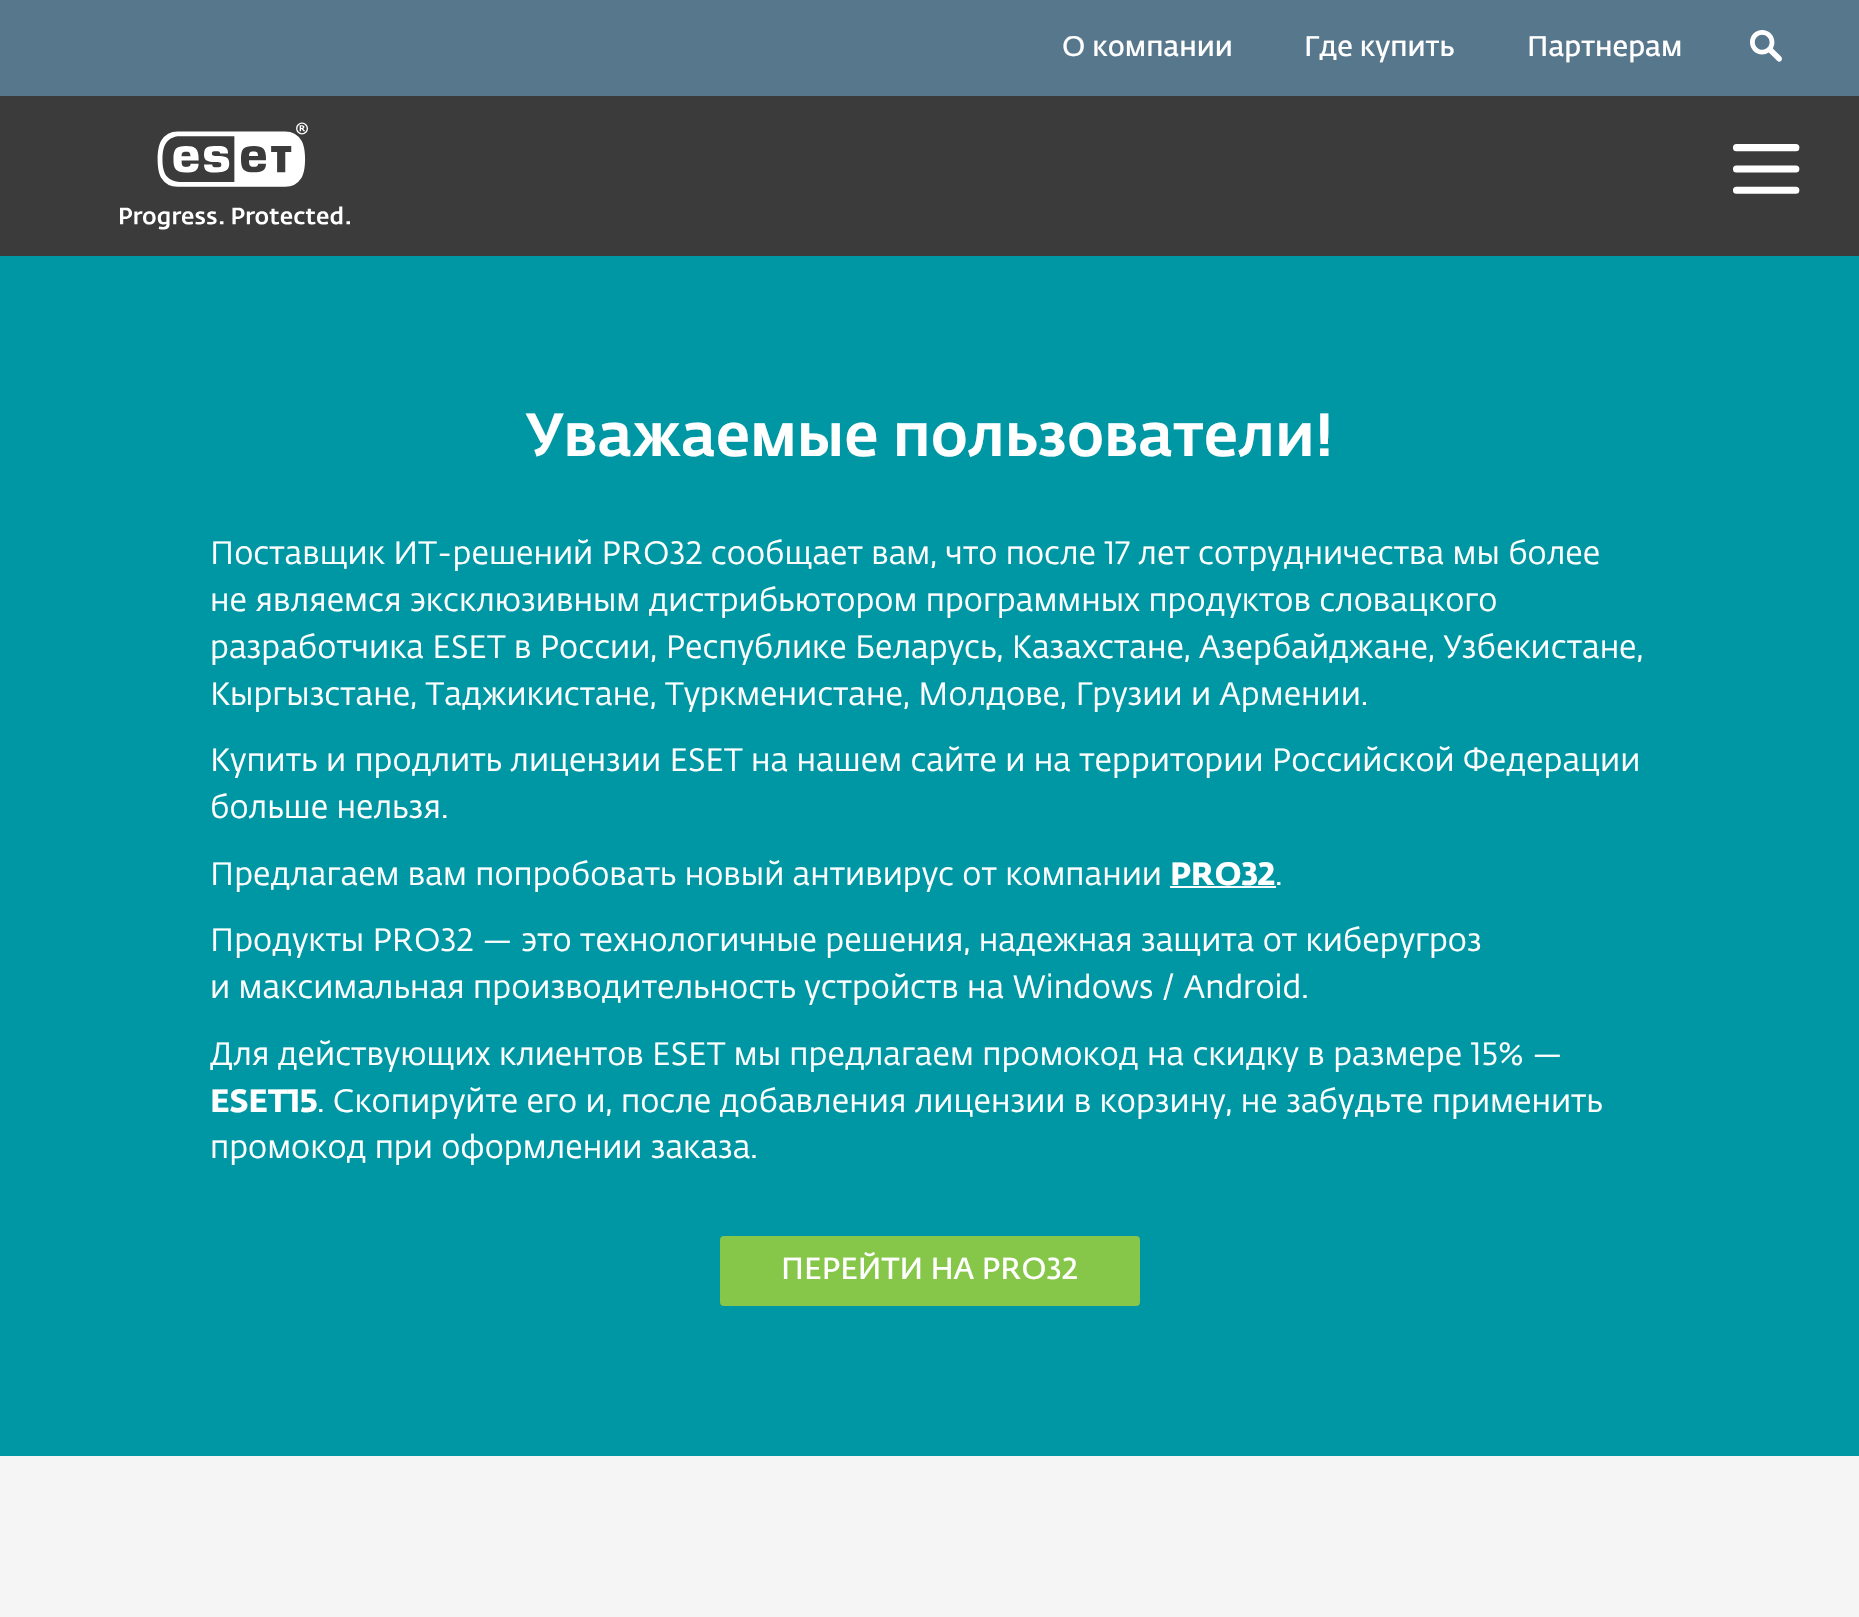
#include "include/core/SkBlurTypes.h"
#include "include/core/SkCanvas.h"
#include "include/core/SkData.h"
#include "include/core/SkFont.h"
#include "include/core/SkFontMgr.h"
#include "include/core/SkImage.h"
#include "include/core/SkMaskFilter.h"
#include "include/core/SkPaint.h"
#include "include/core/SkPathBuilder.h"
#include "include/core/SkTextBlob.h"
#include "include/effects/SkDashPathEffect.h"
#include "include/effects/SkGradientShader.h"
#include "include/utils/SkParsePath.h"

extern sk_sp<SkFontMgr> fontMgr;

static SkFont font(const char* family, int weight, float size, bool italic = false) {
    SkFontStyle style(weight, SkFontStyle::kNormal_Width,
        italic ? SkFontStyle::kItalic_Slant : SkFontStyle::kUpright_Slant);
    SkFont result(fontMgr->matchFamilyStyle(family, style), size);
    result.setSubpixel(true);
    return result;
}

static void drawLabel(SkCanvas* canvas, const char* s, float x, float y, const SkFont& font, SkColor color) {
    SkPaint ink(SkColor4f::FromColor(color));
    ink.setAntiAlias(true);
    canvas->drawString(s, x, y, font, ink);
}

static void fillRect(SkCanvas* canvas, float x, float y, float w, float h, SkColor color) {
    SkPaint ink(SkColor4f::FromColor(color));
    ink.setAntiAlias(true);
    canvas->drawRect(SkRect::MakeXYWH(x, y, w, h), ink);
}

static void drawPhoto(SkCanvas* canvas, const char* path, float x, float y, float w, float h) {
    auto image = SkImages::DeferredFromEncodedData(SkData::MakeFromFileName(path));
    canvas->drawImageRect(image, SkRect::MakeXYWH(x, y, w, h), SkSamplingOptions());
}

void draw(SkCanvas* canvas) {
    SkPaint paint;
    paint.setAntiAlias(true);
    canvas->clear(0xFF0097A4);
    fillRect(canvas, 0, 0, 1859, 96, 0xFF57778C);
    SkFont font1 = font("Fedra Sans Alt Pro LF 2", 400, 28);
    drawLabel(canvas, "О компании", 1062, 56, font1, 0xFFFFFFFF);
    drawLabel(canvas, "Где купить", 1304, 56, font1, 0xFFFFFFFF);
    drawLabel(canvas, "Партнерам", 1527, 56, font1, 0xFFFFFFFF);
    drawPhoto(canvas, "assets/img1.png", 1750, 30, 32, 32);
    fillRect(canvas, 0, 96, 1859, 160, 0xFF3B3B3B);
    drawPhoto(canvas, "assets/img2.png", 120, 122, 230, 108);
    drawPhoto(canvas, "assets/img3.png", 1733, 144, 67, 50);
    SkFont font2 = font("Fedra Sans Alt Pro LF", 500, 60);
    drawLabel(canvas, "Уважаемые пользователи!", 526, 456, font2, 0xFFFFFFFF);
    SkFont font3 = font("Fedra Sans Alt Pro LF", 400, 32);
    drawLabel(canvas, "Поставщик ИТ-решений PRO32 сообщает вам, что после 17 лет сотрудничества мы более", 210, 564, font3, 0xFFFFFFFF);
    drawLabel(canvas, "не являемся эксклюзивным дистрибьютором программных продуктов словацкого", 210, 611, font3, 0xFFFFFFFF);
    drawLabel(canvas, "разработчика ESET в России, Республике Беларусь, Казахстане, Азербайджане, Узбекистане,", 210, 658, font3, 0xFFFFFFFF);
    drawLabel(canvas, "Кыргызстане, Таджикистане, Туркменистане, Молдове, Грузии и Армении.", 210, 705, font3, 0xFFFFFFFF);
    drawLabel(canvas, "Купить и продлить лицензии ESET на нашем сайте и на территории Российской Федерации", 210, 771, font3, 0xFFFFFFFF);
    drawLabel(canvas, "больше нельзя.", 210, 818, font3, 0xFFFFFFFF);
    drawLabel(canvas, "Предлагаем вам попробовать новый антивирус от компании", 210, 885, font3, 0xFFFFFFFF);
    SkFont font4 = font("Fedra Sans Alt Pro LF", 700, 32);
    drawLabel(canvas, "PRO32", 1170, 885, font4, 0xFFFFFFFF);
    fillRect(canvas, 1170, 886, 106, 2, 0xFFFFFFFF);
    drawLabel(canvas, ".", 1275, 885, font3, 0xFFFFFFFF);
    drawLabel(canvas, "Продукты PRO32 — это технологичные решения, надежная защита от киберугроз", 210, 951, font3, 0xFFFFFFFF);
    drawLabel(canvas, "и максимальная производительность устройств на Windows / Android.", 210, 998, font3, 0xFFFFFFFF);
    drawLabel(canvas, "Для действующих клиентов ESET мы предлагаем промокод на скидку в размере 15% —", 210, 1065, font3, 0xFFFFFFFF);
    drawLabel(canvas, "ESET15", 210, 1112, font4, 0xFFFFFFFF);
    drawLabel(canvas, ". Скопируйте его и, после добавления лицензии в корзину, не забудьте применить", 317, 1112, font3, 0xFFFFFFFF);
    drawLabel(canvas, "промокод при оформлении заказа.", 210, 1158, font3, 0xFFFFFFFF);
    paint.setColor(0xFF86C648);
    canvas->drawRoundRect(SkRect::MakeXYWH(721, 1237, 418, 68), 3, 3, paint);
    paint.setStroke(true);
    paint.setStrokeWidth(2);
    canvas->drawRoundRect(SkRect::MakeXYWH(721, 1237, 418, 68), 3, 3, paint);
    SkFont font5 = font("Fedra Sans Alt Pro LF 2", 400, 30);
    drawLabel(canvas, "ПЕРЕЙТИ НА PRO32", 781, 1279, font5, 0xFFFFFFFF);
    fillRect(canvas, 0, 1456, 1859, 161, 0xFFF4F5F4);
}
